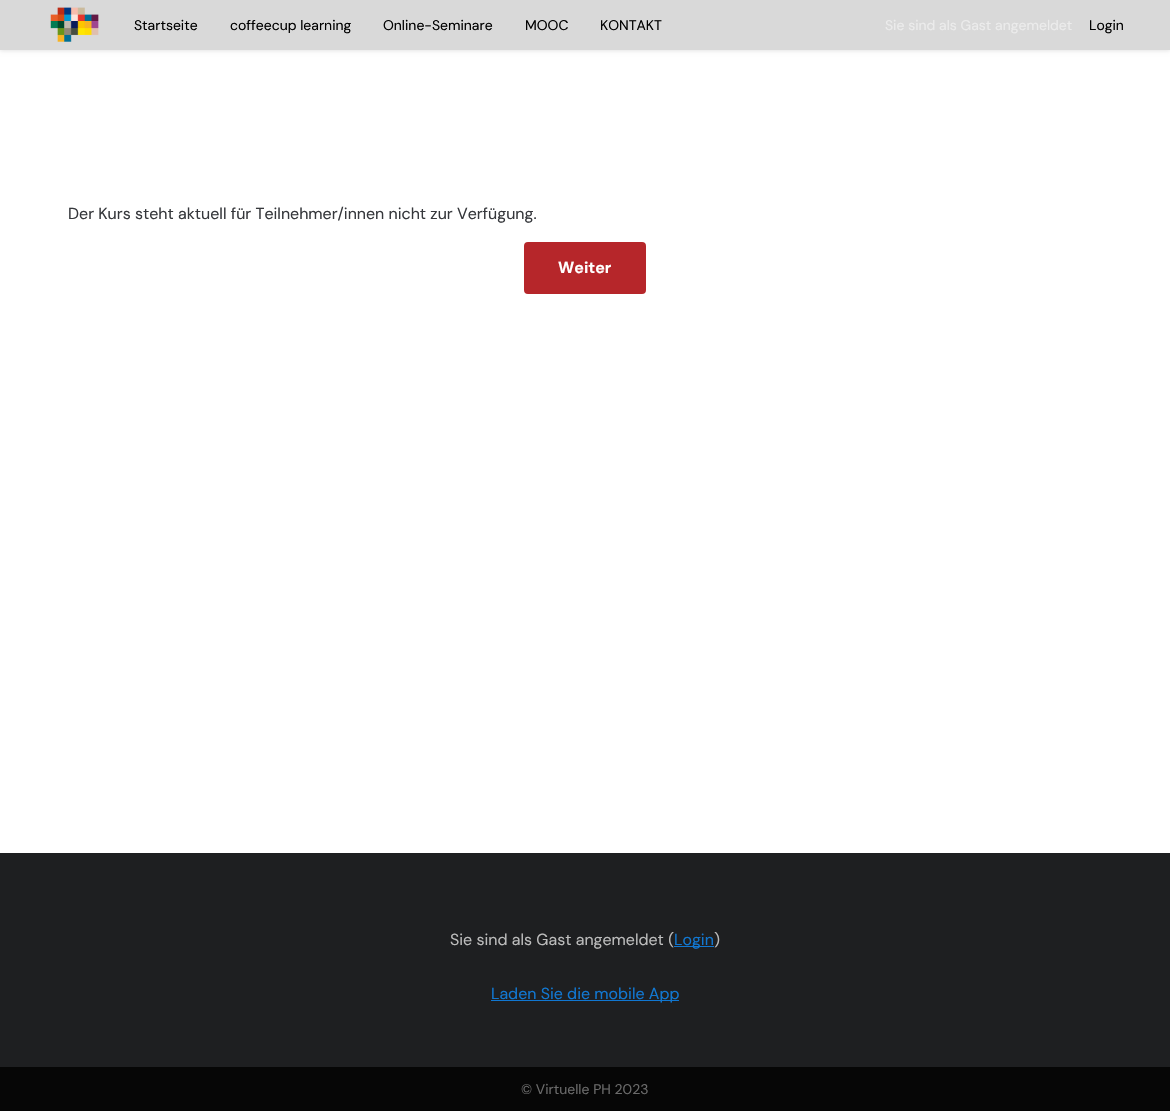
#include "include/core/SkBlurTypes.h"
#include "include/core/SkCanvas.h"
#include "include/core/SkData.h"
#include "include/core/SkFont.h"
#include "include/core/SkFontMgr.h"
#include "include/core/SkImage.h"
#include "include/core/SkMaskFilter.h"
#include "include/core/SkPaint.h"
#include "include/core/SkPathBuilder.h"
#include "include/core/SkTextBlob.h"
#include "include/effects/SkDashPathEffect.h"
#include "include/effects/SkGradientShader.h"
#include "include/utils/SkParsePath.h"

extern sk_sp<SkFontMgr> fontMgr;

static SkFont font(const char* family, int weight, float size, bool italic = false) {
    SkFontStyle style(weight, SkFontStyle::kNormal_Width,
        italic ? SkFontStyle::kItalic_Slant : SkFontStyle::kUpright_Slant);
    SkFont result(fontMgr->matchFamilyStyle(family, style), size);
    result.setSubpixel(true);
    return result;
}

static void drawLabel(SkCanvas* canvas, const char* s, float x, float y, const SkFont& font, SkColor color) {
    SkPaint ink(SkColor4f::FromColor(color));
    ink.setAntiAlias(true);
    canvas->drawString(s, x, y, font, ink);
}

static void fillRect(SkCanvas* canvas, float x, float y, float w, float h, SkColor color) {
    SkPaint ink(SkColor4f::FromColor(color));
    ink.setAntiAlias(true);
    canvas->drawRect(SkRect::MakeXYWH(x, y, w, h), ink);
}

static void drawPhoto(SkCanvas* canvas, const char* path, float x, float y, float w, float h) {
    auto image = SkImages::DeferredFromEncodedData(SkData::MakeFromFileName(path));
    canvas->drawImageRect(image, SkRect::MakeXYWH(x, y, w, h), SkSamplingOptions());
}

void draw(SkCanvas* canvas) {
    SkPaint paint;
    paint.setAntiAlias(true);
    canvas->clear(0xFFFFFFFF);
    paint.setColor(0x1A000000);
    paint.setMaskFilter(SkMaskFilter::MakeBlur(kNormal_SkBlurStyle, 2));
    canvas->drawRect(SkRect::MakeXYWH(0, 1, 1170, 50), paint);
    paint.setMaskFilter(nullptr);
    fillRect(canvas, 0, 0, 1170, 50, 0xFFD9D9D9);
    drawPhoto(canvas, "assets/img1.png", 50, 7, 49, 35);
    SkFont font1 = font("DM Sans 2", 400, 14);
    drawLabel(canvas, "Startseite", 134, 30, font1, 0xFF000000);
    drawLabel(canvas, "coffeecup learning", 230, 30, font1, 0xFF000000);
    drawLabel(canvas, "Online-Seminare", 383, 30, font1, 0xFF000000);
    drawLabel(canvas, "MOOC", 525, 30, font1, 0xFF000000);
    drawLabel(canvas, "KONTAKT", 600, 30, font1, 0xFF000000);
    drawLabel(canvas, "Sie sind als Gast angemeldet", 885, 30, font1, 0xFFECECEC);
    drawLabel(canvas, "Login", 1089, 30, font1, 0xFF000000);
    SkFont font2 = font("DM Sans", 400, 16);
    drawLabel(canvas, "Der Kurs steht aktuell für Teilnehmer/innen nicht zur Verfügung.", 68, 219, font2, 0xFF36383C);
    paint.setColor(0xFFB6262A);
    canvas->drawRoundRect(SkRect::MakeXYWH(525, 243, 120, 50), 3, 3, paint);
    paint.setStroke(true);
    paint.setStrokeWidth(2);
    canvas->drawRoundRect(SkRect::MakeXYWH(525, 243, 120, 50), 3, 3, paint);
    SkFont font3 = font("DM Sans", 700, 16);
    drawLabel(canvas, "Weiter", 558, 273, font3, 0xFFFFFFFF);
    fillRect(canvas, 0, 853, 1170, 214, 0xFF1E1F21);
    drawLabel(canvas, "Sie sind als Gast angemeldet (", 450, 945, font2, 0xFFBCBCBC);
    fillRect(canvas, 674, 946, 40, 1, 0xFF1177D1);
    drawLabel(canvas, "Login", 674, 945, font2, 0xFF1177D1);
    drawLabel(canvas, ")", 714, 945, font2, 0xFFBCBCBC);
    fillRect(canvas, 491, 1000, 188, 1, 0xFF1177D1);
    drawLabel(canvas, "Laden Sie die mobile App", 491, 999, font2, 0xFF1177D1);
    fillRect(canvas, 0, 1067, 1170, 44, 0xFF060606);
    drawLabel(canvas, "© Virtuelle PH 2023", 521, 1094, font1, 0xFF6A6A6A);
}
